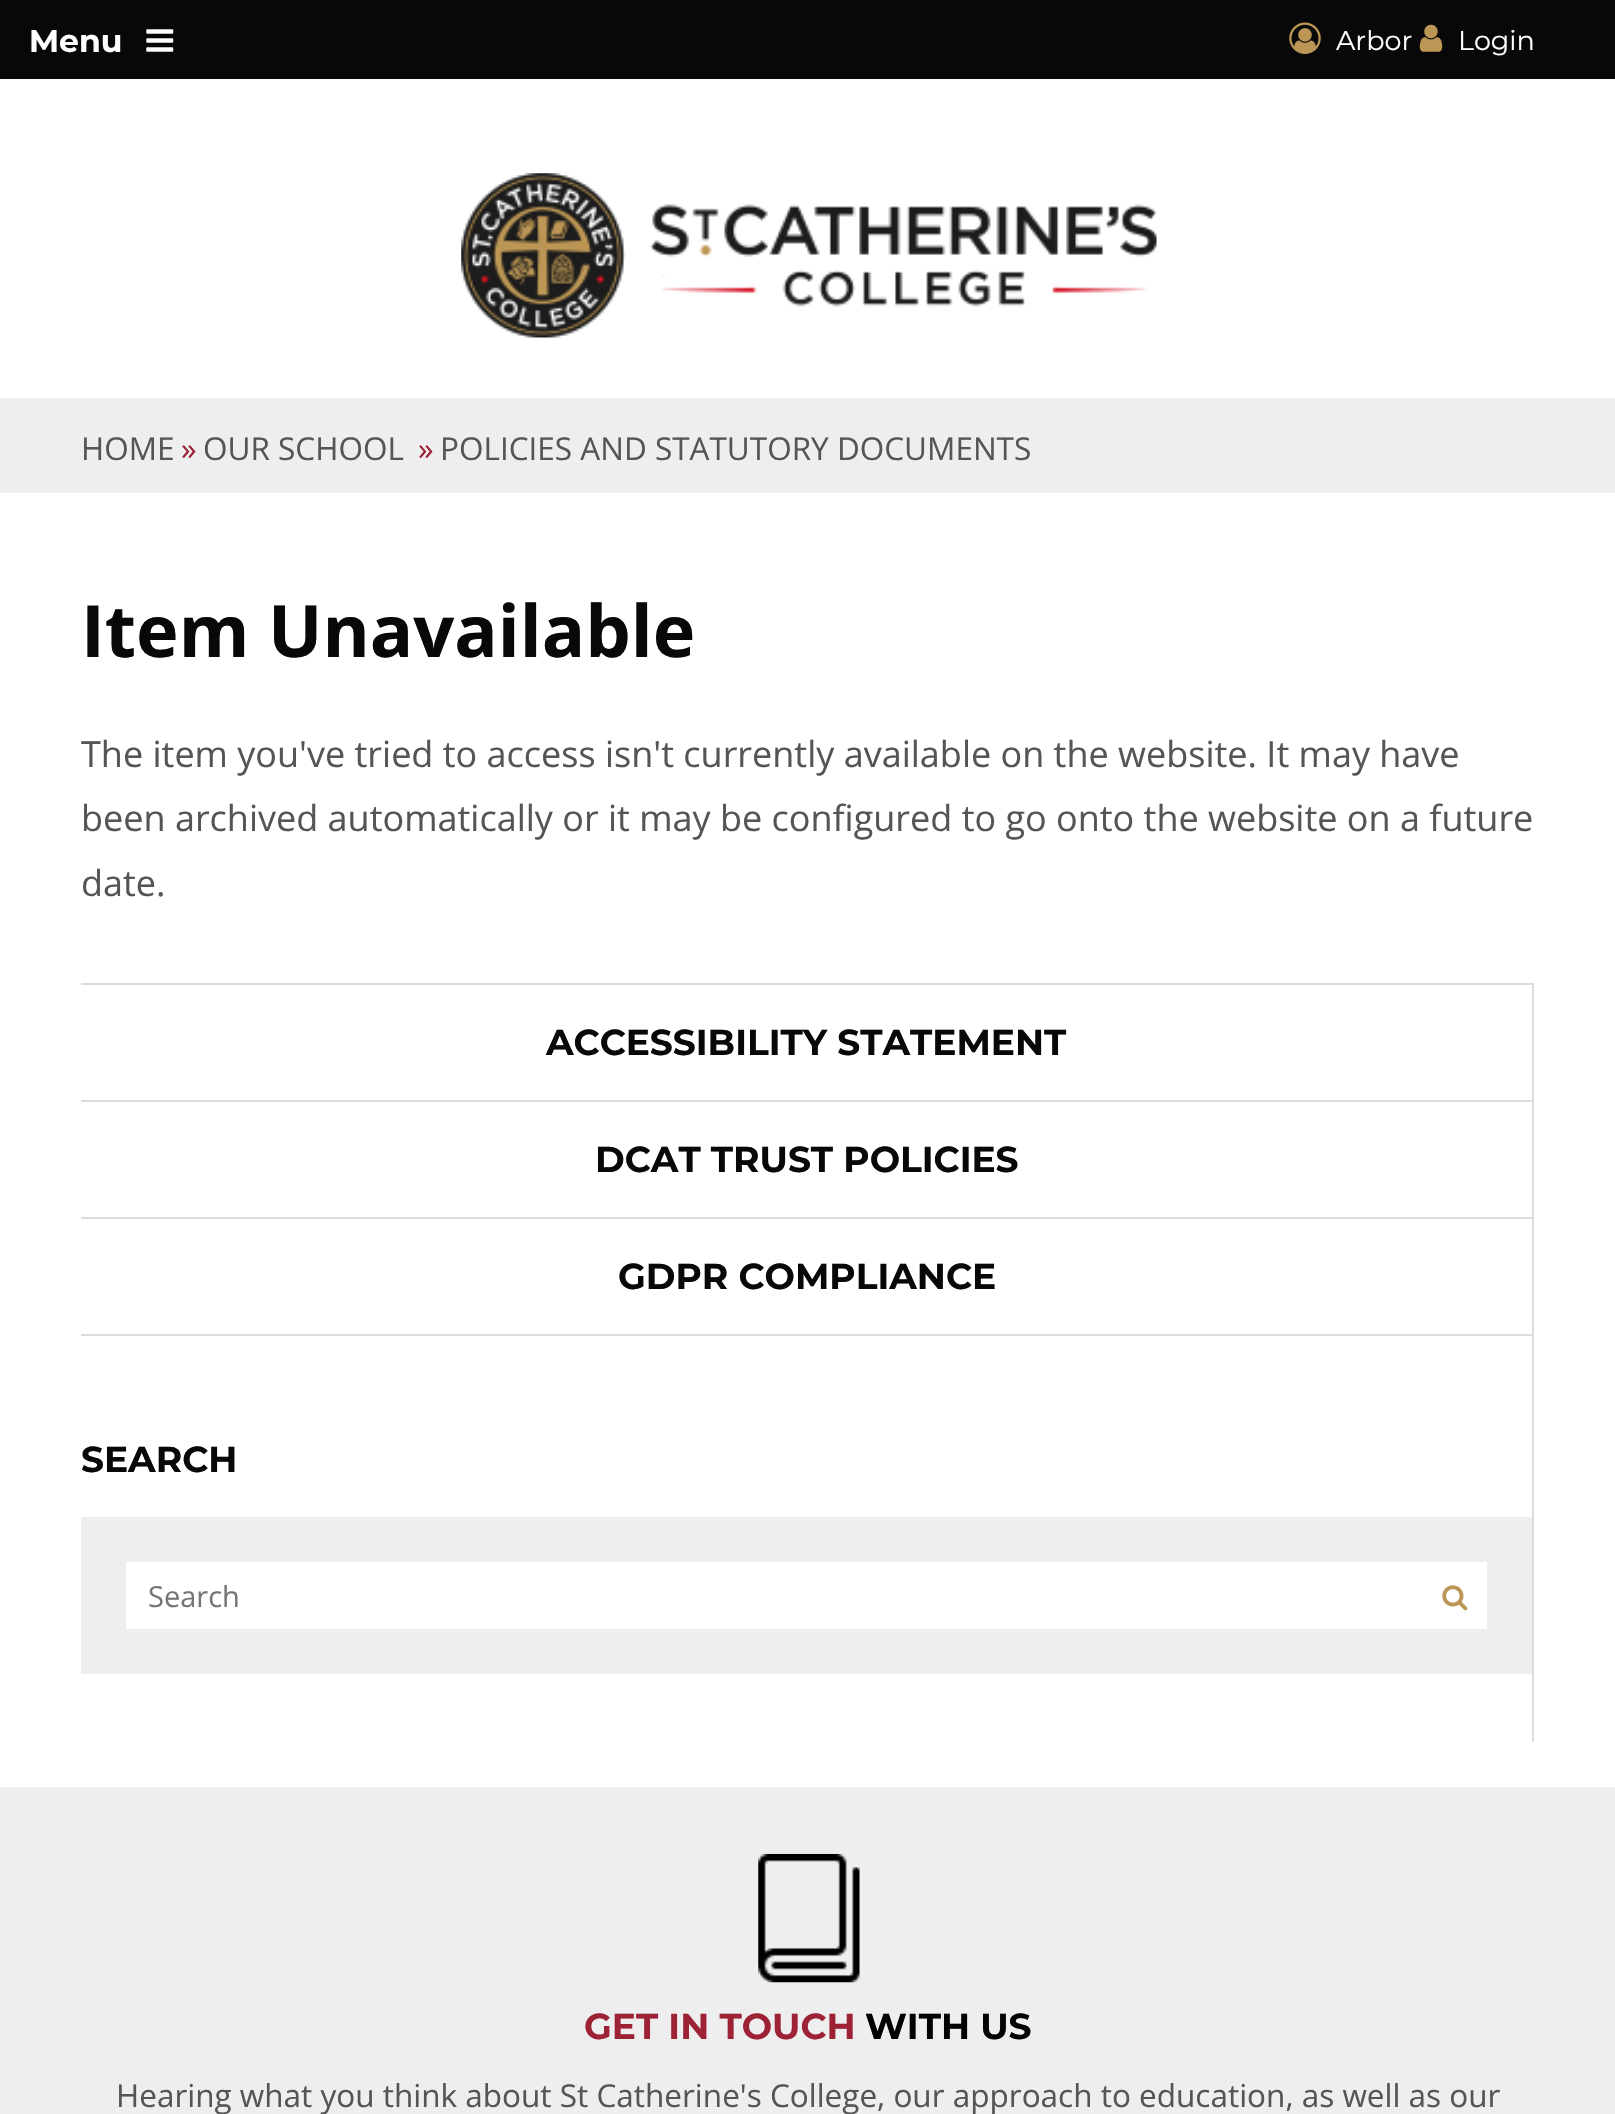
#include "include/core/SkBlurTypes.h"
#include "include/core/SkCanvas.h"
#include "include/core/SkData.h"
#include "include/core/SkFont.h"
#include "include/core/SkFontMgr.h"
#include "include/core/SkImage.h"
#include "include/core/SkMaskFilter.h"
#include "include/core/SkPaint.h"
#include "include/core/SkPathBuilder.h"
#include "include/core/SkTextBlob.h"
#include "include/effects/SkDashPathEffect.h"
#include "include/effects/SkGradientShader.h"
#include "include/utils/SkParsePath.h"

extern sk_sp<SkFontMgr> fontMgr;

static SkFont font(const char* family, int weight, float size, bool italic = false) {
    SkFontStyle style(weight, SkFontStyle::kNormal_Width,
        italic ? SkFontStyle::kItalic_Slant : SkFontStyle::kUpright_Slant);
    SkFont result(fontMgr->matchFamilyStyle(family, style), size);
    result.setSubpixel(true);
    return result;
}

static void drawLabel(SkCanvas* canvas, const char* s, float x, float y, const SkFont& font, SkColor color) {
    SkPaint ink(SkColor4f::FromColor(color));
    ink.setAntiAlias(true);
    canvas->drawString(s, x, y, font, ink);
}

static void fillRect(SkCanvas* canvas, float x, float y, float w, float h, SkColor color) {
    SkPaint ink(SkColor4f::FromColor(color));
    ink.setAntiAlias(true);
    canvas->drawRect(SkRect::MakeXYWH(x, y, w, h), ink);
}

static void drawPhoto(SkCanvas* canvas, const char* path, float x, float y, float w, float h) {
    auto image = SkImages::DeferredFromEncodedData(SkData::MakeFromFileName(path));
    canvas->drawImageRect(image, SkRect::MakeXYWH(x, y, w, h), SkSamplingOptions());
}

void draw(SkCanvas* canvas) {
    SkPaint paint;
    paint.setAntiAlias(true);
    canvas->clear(0xFFFFFFFF);
    fillRect(canvas, 0, 0, 1615, 79, 0xFF080808);
    SkFont font1 = font("Montserrat", 700, 31.5f);
    drawLabel(canvas, "Menu", 29, 52, font1, 0xFFFFFFFF);
    drawPhoto(canvas, "assets/img1.png", 146, 29, 28, 23);
    drawPhoto(canvas, "assets/img2.png", 1289, 22, 32, 32);
    SkFont font2 = font("Montserrat", 400, 27);
    drawLabel(canvas, "Arbor", 1336, 50, font2, 0xFFFFFFFF);
    drawPhoto(canvas, "assets/img3.png", 1419, 24, 24, 28);
    drawLabel(canvas, "Login", 1458, 50, font2, 0xFFFFFFFF);
    drawPhoto(canvas, "assets/img4.png", 461, 173, 696, 165);
    fillRect(canvas, 0, 398, 1615, 95, 0xFFEEEEEE);
    SkFont font3 = font("Open Sans", 400, 31.5f);
    drawLabel(canvas, "HOME", 81, 460, font3, 0xFF555555);
    drawLabel(canvas, "»", 181, 460, font3, 0xFF9D2235);
    drawLabel(canvas, "OUR SCHOOL", 203, 460, font3, 0xFF555555);
    drawLabel(canvas, "»", 418, 460, font3, 0xFF9D2235);
    drawLabel(canvas, "POLICIES AND STATUTORY DOCUMENTS", 440, 460, font3, 0xFF555555);
    SkFont font4 = font("Open Sans", 700, 72);
    drawLabel(canvas, "Item Unavailable", 81, 657, font4, 0xFF080808);
    SkFont font5 = font("Open Sans", 400, 36);
    drawLabel(canvas, "The item you've tried to access isn't currently available on the website. It may have", 81, 767, font5, 0xFF555555);
    drawLabel(canvas, "been archived automatically or it may be configured to go onto the website on a future", 81, 831, font5, 0xFF555555);
    drawLabel(canvas, "date.", 81, 896, font5, 0xFF555555);
    fillRect(canvas, 1532, 983, 2, 759, 0xFFDCDCDC);
    fillRect(canvas, 81, 983, 1451, 2, 0xFFDCDCDC);
    fillRect(canvas, 81, 1334, 1451, 2, 0xFFDCDCDC);
    SkFont font6 = font("Montserrat", 700, 36);
    drawLabel(canvas, "ACCESSIBILITY STATEMENT", 546, 1055, font6, 0xFF080808);
    fillRect(canvas, 81, 1100, 1451, 2, 0xFFDCDCDC);
    drawLabel(canvas, "DCAT TRUST POLICIES", 595, 1172, font6, 0xFF080808);
    fillRect(canvas, 81, 1217, 1451, 2, 0xFFDCDCDC);
    drawLabel(canvas, "GDPR COMPLIANCE", 618, 1289, font6, 0xFF080808);
    drawLabel(canvas, "SEARCH", 81, 1472, font6, 0xFF080808);
    fillRect(canvas, 81, 1517, 1451, 157, 0xFFEEEEEE);
    fillRect(canvas, 126, 1562, 1361, 67, 0xFFFFFFFF);
    SkFont font7 = font("Open Sans", 400, 29);
    drawLabel(canvas, "Search", 148, 1607, font7, 0xFF757575);
    drawPhoto(canvas, "assets/img5.png", 1442, 1585, 26, 26);
    fillRect(canvas, 0, 1787, 1615, 327, 0xFFEEEEEE);
    drawPhoto(canvas, "assets/img6.png", 758, 1854, 102, 129);
    drawLabel(canvas, "GET IN TOUCH", 584, 2039, font6, 0xFF9D2235);
    drawLabel(canvas, "WITH US", 865, 2039, font6, 0xFF020202);
    drawLabel(canvas, "Hearing what you think about St Catherine's College, our approach to education, as well as our", 116, 2107, font3, 0xFF555555);
}
